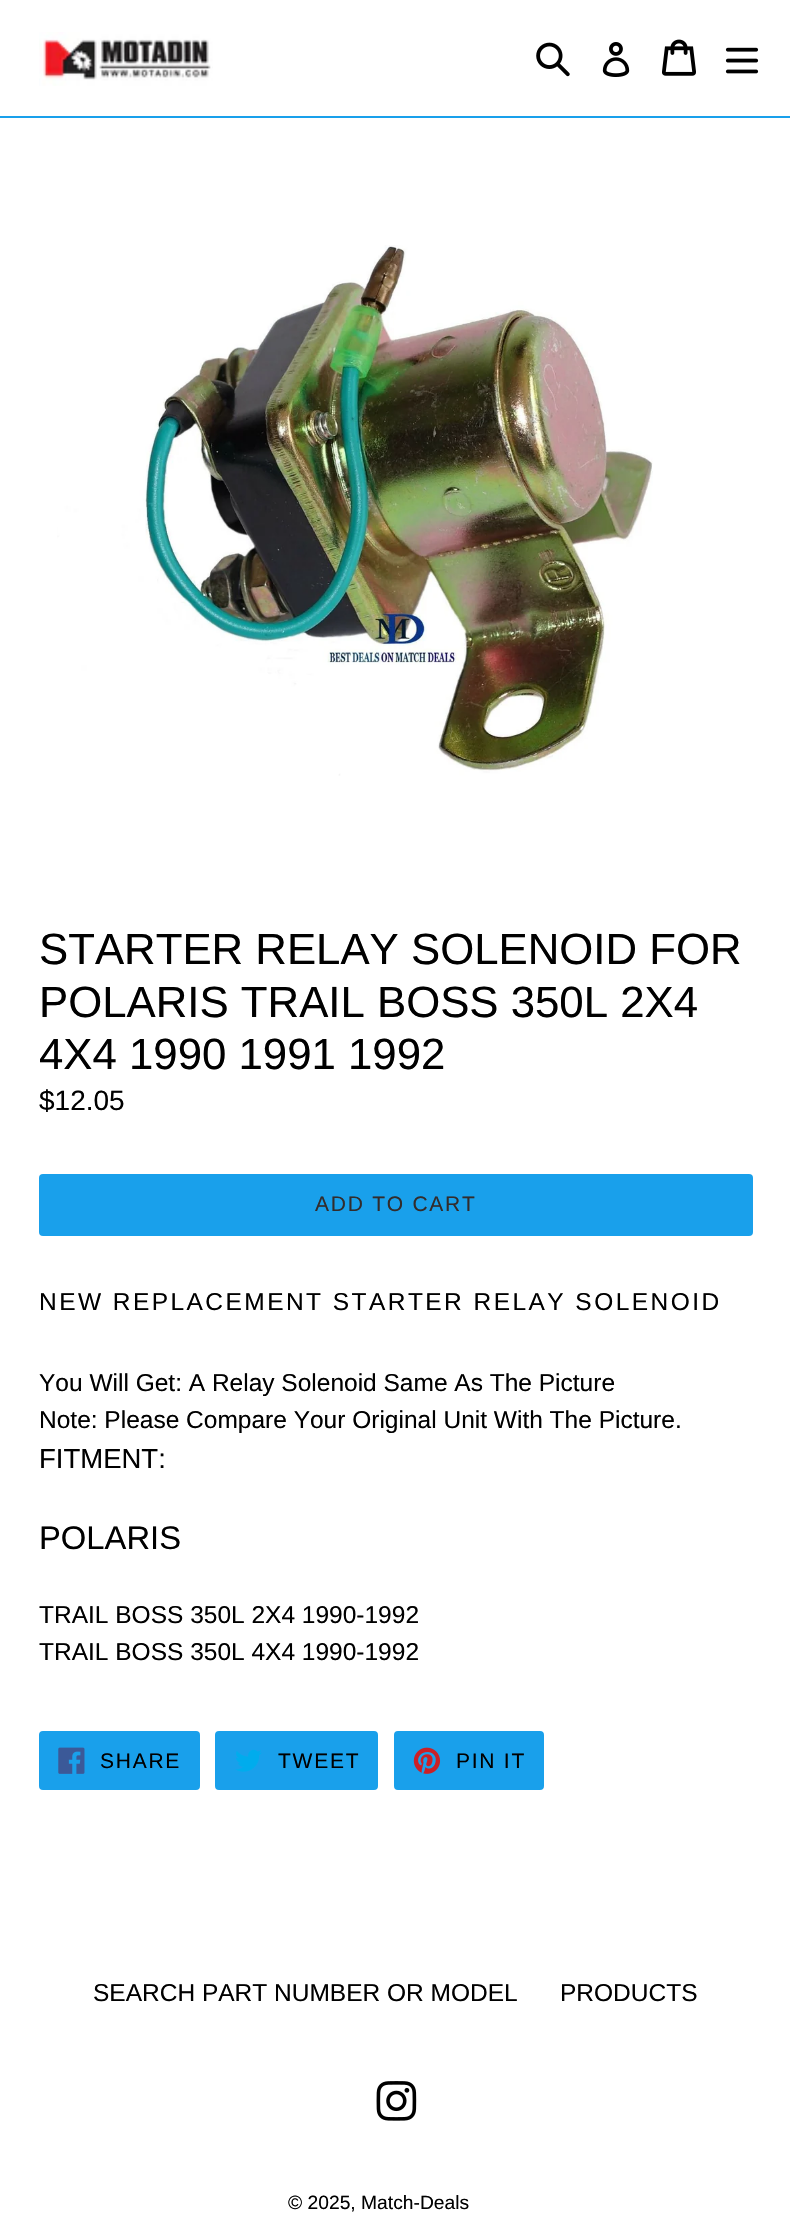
#include "include/core/SkBlurTypes.h"
#include "include/core/SkCanvas.h"
#include "include/core/SkData.h"
#include "include/core/SkFont.h"
#include "include/core/SkFontMgr.h"
#include "include/core/SkImage.h"
#include "include/core/SkMaskFilter.h"
#include "include/core/SkPaint.h"
#include "include/core/SkPathBuilder.h"
#include "include/core/SkTextBlob.h"
#include "include/effects/SkDashPathEffect.h"
#include "include/effects/SkGradientShader.h"
#include "include/utils/SkParsePath.h"

extern sk_sp<SkFontMgr> fontMgr;

static SkFont font(const char* family, int weight, float size, bool italic = false) {
    SkFontStyle style(weight, SkFontStyle::kNormal_Width,
        italic ? SkFontStyle::kItalic_Slant : SkFontStyle::kUpright_Slant);
    SkFont result(fontMgr->matchFamilyStyle(family, style), size);
    result.setSubpixel(true);
    return result;
}

static void drawLabel(SkCanvas* canvas, const char* s, float x, float y, const SkFont& font, SkColor color) {
    SkPaint ink(SkColor4f::FromColor(color));
    ink.setAntiAlias(true);
    canvas->drawString(s, x, y, font, ink);
}

static void drawTracked(SkCanvas* canvas, const char* s, float x, float y, const SkFont& font, const SkPaint& ink, float letter, float word) {
    std::vector<SkGlyphID> glyphs(font.countText(s, strlen(s), SkTextEncoding::kUTF8));
    std::vector<float> xs(glyphs.size());
    font.textToGlyphs(s, strlen(s), SkTextEncoding::kUTF8, glyphs);
    font.getXPos(glyphs, xs, x);
    float extra = 0;
    for (size_t i = 0; i < glyphs.size(); i++) {
        xs[i] += extra;
        extra += letter + word * (glyphs[i] == font.unicharToGlyph(' '));
    }
    canvas->drawTextBlob(SkTextBlob::MakeFromPosHGlyphs(glyphs, xs, y, font), 0, 0, ink);
}

static void fillRect(SkCanvas* canvas, float x, float y, float w, float h, SkColor color) {
    SkPaint ink(SkColor4f::FromColor(color));
    ink.setAntiAlias(true);
    canvas->drawRect(SkRect::MakeXYWH(x, y, w, h), ink);
}

static void fillRRect(SkCanvas* canvas, float x, float y, float w, float h, float radius, SkColor color) {
    SkPaint ink(SkColor4f::FromColor(color));
    ink.setAntiAlias(true);
    canvas->drawRoundRect(SkRect::MakeXYWH(x, y, w, h), radius, radius, ink);
}

static void drawPhoto(SkCanvas* canvas, const char* path, float x, float y, float w, float h) {
    auto image = SkImages::DeferredFromEncodedData(SkData::MakeFromFileName(path));
    canvas->drawImageRect(image, SkRect::MakeXYWH(x, y, w, h), SkSamplingOptions());
}

void draw(SkCanvas* canvas) {
    SkPaint paint;
    paint.setAntiAlias(true);
    canvas->clear(0xFFFFFFFF);
    fillRect(canvas, 0, 116, 790, 2, 0xFF19A0EB);
    drawPhoto(canvas, "assets/img1.png", 39, 32, 174, 54);
    drawPhoto(canvas, "assets/img2.png", 536, 42, 34, 35);
    drawPhoto(canvas, "assets/img3.png", 602, 42, 28, 35);
    drawPhoto(canvas, "assets/img4.png", 662, 39, 34, 37);
    drawPhoto(canvas, "assets/img5.png", 725, 47, 34, 27);
    drawPhoto(canvas, "assets/img6.png", 57, 245, 596, 531);
    SkFont font1 = font("Liberation Sans", 400, 43.75f);
    drawLabel(canvas, "STARTER RELAY SOLENOID FOR", 39, 964, font1, 0xFF000000);
    drawLabel(canvas, "POLARIS TRAIL BOSS 350L 2X4", 39, 1017, font1, 0xFF000000);
    drawLabel(canvas, "4X4 1990 1991 1992", 39, 1069, font1, 0xFF000000);
    SkFont font2 = font("Liberation Sans", 400, 28);
    drawLabel(canvas, "$12.05", 39, 1110, font2, 0xFF000000);
    fillRRect(canvas, 39, 1174, 714, 62, 4, 0xFF19A0EB);
    SkFont font3 = font("Liberation Sans", 400, 21);
    paint.setColor(0xFF322C2C);
    drawTracked(canvas, "ADD TO CART", 315, 1211, font3, paint, 1.75f, 0);
    SkFont font4 = font("Liberation Sans", 400, 24.5f);
    paint.setColor(0xFF000000);
    drawTracked(canvas, "NEW REPLACEMENT STARTER RELAY SOLENOID", 39, 1310, font4, paint, 2.45f, 0);
    drawLabel(canvas, "You Will Get: A Relay Solenoid Same As The Picture", 39, 1391, font4, 0xFF000000);
    drawLabel(canvas, "Note: Please Compare Your Original Unit With The Picture.", 39, 1428, font4, 0xFF000000);
    SkFont font5 = font("Liberation Sans", 400, 27.5f);
    drawLabel(canvas, "FITMENT:", 39, 1468, font5, 0xFF000000);
    SkFont font6 = font("Liberation Sans", 400, 32.75f);
    drawLabel(canvas, "POLARIS", 39, 1549, font6, 0xFF000000);
    drawLabel(canvas, "TRAIL BOSS 350L 2X4 1990-1992", 39, 1623, font4, 0xFF000000);
    drawLabel(canvas, "TRAIL BOSS 350L 4X4 1990-1992", 39, 1660, font4, 0xFF000000);
    paint.setColor(0xFF19A0EB);
    canvas->drawRoundRect(SkRect::MakeXYWH(40, 1732, 159, 57), 3, 3, paint);
    paint.setStroke(true);
    paint.setStrokeWidth(2);
    canvas->drawRoundRect(SkRect::MakeXYWH(40, 1732, 159, 57), 3, 3, paint);
    drawPhoto(canvas, "assets/img7.png", 58, 1747, 27, 27);
    paint.setStroke(false);
    paint.setColor(0xFF000000);
    drawTracked(canvas, "SHARE", 100, 1768, font3, paint, 1.75f, 0);
    paint.setColor(0xFF19A0EB);
    canvas->drawRoundRect(SkRect::MakeXYWH(216, 1732, 161, 57), 3, 3, paint);
    paint.setStroke(true);
    canvas->drawRoundRect(SkRect::MakeXYWH(216, 1732, 161, 57), 3, 3, paint);
    drawPhoto(canvas, "assets/img8.png", 235, 1749, 27, 23);
    paint.setStroke(false);
    paint.setColor(0xFF000000);
    drawTracked(canvas, "TWEET", 278, 1768, font3, paint, 1.75f, 0);
    paint.setColor(0xFF19A0EB);
    canvas->drawRoundRect(SkRect::MakeXYWH(395, 1732, 148, 57), 3, 3, paint);
    paint.setStroke(true);
    canvas->drawRoundRect(SkRect::MakeXYWH(395, 1732, 148, 57), 3, 3, paint);
    drawPhoto(canvas, "assets/img9.png", 413, 1747, 28, 27);
    paint.setStroke(false);
    paint.setColor(0xFF000000);
    drawTracked(canvas, "PIN IT", 456, 1768, font3, paint, 1.75f, 0);
    drawLabel(canvas, "SEARCH PART NUMBER OR MODEL", 93, 2001, font4, 0xFF000000);
    drawLabel(canvas, "PRODUCTS", 560, 2001, font4, 0xFF000000);
    drawPhoto(canvas, "assets/img10.png", 376, 2081, 41, 40);
    SkFont font7 = font("Liberation Sans", 400, 19.25f);
    drawLabel(canvas, "© 2025, Match-Deals", 288, 2209, font7, 0xFF000000);
}
